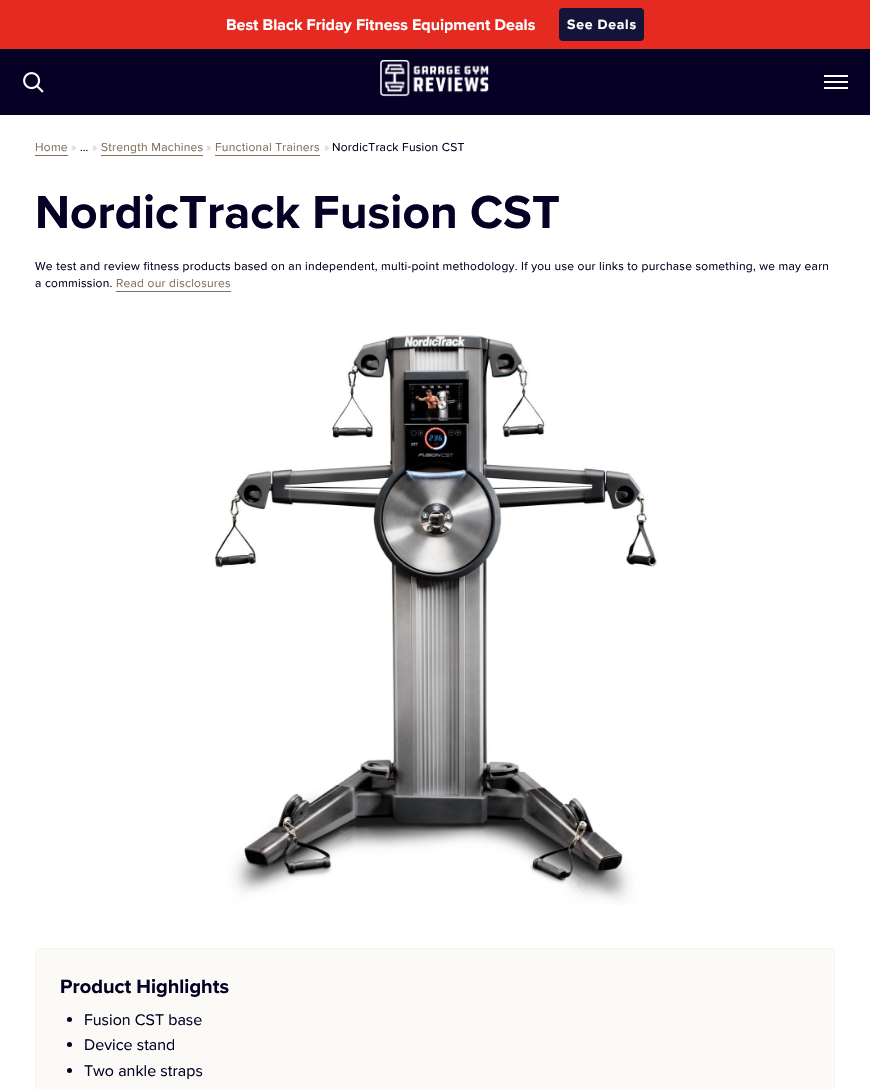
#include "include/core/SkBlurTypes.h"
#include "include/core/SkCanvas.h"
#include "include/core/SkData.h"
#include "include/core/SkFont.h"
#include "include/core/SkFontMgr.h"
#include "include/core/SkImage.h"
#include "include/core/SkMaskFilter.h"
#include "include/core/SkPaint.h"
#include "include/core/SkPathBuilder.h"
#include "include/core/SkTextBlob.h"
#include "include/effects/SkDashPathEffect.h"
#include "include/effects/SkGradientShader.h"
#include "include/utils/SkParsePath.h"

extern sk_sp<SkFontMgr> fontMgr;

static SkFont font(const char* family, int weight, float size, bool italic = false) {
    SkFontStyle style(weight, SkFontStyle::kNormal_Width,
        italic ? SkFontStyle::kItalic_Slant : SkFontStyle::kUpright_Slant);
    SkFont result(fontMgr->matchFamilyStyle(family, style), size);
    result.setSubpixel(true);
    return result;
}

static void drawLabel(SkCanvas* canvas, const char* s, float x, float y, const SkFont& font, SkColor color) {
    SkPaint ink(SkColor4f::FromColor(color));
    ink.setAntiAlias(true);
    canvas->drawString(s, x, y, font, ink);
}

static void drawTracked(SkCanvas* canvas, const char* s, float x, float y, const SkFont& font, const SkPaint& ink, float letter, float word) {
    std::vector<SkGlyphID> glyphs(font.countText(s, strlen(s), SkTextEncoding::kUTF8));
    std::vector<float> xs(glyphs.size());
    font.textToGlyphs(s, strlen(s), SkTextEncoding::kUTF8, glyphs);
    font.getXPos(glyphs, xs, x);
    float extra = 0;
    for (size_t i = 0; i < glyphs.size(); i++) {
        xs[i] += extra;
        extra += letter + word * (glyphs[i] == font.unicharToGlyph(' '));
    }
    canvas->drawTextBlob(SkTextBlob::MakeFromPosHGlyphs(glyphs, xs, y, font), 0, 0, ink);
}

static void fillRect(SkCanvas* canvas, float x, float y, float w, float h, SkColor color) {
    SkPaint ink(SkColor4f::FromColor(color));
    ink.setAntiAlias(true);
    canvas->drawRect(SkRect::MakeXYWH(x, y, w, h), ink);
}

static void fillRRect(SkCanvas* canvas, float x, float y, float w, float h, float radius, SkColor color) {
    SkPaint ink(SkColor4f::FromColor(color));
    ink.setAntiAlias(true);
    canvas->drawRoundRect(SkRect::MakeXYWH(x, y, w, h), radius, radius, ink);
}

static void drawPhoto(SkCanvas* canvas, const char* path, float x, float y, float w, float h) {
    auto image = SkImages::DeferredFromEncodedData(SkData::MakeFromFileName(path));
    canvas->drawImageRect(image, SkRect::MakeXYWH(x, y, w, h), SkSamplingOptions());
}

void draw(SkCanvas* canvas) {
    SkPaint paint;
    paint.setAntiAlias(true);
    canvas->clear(0xFFFFFFFF);
    fillRect(canvas, 0, 0, 870, 49, 0xFFE42A21);
    SkFont font1 = font("Proxima Nova", 700, 16);
    drawLabel(canvas, "Best Black Friday Fitness Equipment Deals", 226, 30, font1, 0xFFFFFFFF);
    fillRRect(canvas, 559, 8, 85, 33, 4, 0xFF141338);
    SkFont font2 = font("Proxima Nova", 700, 14);
    paint.setColor(0xFFFFFFFF);
    drawTracked(canvas, "See Deals", 567, 29, font2, paint, 0.75f, 0);
    fillRect(canvas, 0, 49, 870, 66, 0xFF050024);
    drawPhoto(canvas, "assets/img1.png", 23, 72, 21, 21);
    drawPhoto(canvas, "assets/img2.png", 380, 59, 109, 38);
    fillRect(canvas, 824, 75, 24, 2, 0xFFFFFFFF);
    fillRect(canvas, 824, 81, 24, 2, 0xFFFFFFFF);
    fillRect(canvas, 824, 87, 24, 2, 0xFFFFFFFF);
    SkFont font3 = font("Proxima Nova", 400, 12);
    paint.setColor(0xFF82705F);
    drawTracked(canvas, "Home", 35, 151, font3, paint, 0.24f, 0);
    fillRect(canvas, 35, 155, 33, 1, 0xFF82705F);
    paint.setColor(0xFFD2CEC8);
    drawTracked(canvas, "»", 71, 151, font3, paint, 0.24f, 0);
    paint.setColor(0xFF050024);
    drawTracked(canvas, "…", 80, 151, font3, paint, 0.24f, 0);
    paint.setColor(0xFFD2CEC8);
    drawTracked(canvas, "»", 92, 151, font3, paint, 0.24f, 0);
    paint.setColor(0xFF82705F);
    drawTracked(canvas, "Strength Machines", 101, 151, font3, paint, 0.24f, 0);
    fillRect(canvas, 101, 155, 102, 1, 0xFF82705F);
    paint.setColor(0xFFD2CEC8);
    drawTracked(canvas, "»", 206, 151, font3, paint, 0.24f, 0);
    paint.setColor(0xFF82705F);
    drawTracked(canvas, "Functional Trainers", 215, 151, font3, paint, 0.24f, 0);
    fillRect(canvas, 215, 155, 105, 1, 0xFF82705F);
    paint.setColor(0xFFD2CEC8);
    drawTracked(canvas, "»", 324, 151, font3, paint, 0.24f, 0);
    paint.setColor(0xFF050024);
    drawTracked(canvas, "NordicTrack Fusion CST", 332, 151, font3, paint, 0.24f, 0);
    SkFont font4 = font("Proxima Nova", 700, 48);
    drawLabel(canvas, "NordicTrack Fusion CST", 35, 228, font4, 0xFF050024);
    drawTracked(canvas, "We test and review fitness products based on an independent, multi-point methodology. If you use our links to purchase something, we may earn", 35, 270, font3, paint, 0.24f, 0);
    drawTracked(canvas, "a commission.", 35, 287, font3, paint, 0.24f, 0);
    paint.setColor(0xFF82705F);
    drawTracked(canvas, "Read our disclosures", 116, 287, font3, paint, 0.24f, 0);
    fillRect(canvas, 116, 291, 115, 1, 0xFF82705F);
    drawPhoto(canvas, "assets/img3.png", 214, 333, 444, 572);
    paint.setColor(0xFFFBFAF7);
    canvas->drawRoundRect(SkRect::MakeXYWH(35.5f, 948.5f, 799, 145), 3.5f, 3.5f, paint);
    paint.setStroke(true);
    paint.setStrokeWidth(1);
    paint.setColor(0xFFF7F4F0);
    canvas->drawRoundRect(SkRect::MakeXYWH(35.5f, 948.5f, 799, 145), 3.5f, 3.5f, paint);
    SkFont font5 = font("Proxima Nova", 700, 20);
    drawLabel(canvas, "Product Highlights", 60, 993, font5, 0xFF050024);
    paint.setStroke(false);
    paint.setColor(0xFF050024);
    canvas->drawCircle(69.5f, 1019.5f, 2.5f, paint);
    SkFont font6 = font("Proxima Nova", 400, 16);
    drawLabel(canvas, "Fusion CST base", 84, 1025, font6, 0xFF050024);
    canvas->drawCircle(69.5f, 1044.5f, 2.5f, paint);
    drawLabel(canvas, "Device stand", 84, 1050, font6, 0xFF050024);
    canvas->drawCircle(69.5f, 1070.5f, 2.5f, paint);
    drawLabel(canvas, "Two ankle straps", 84, 1076, font6, 0xFF050024);
}
